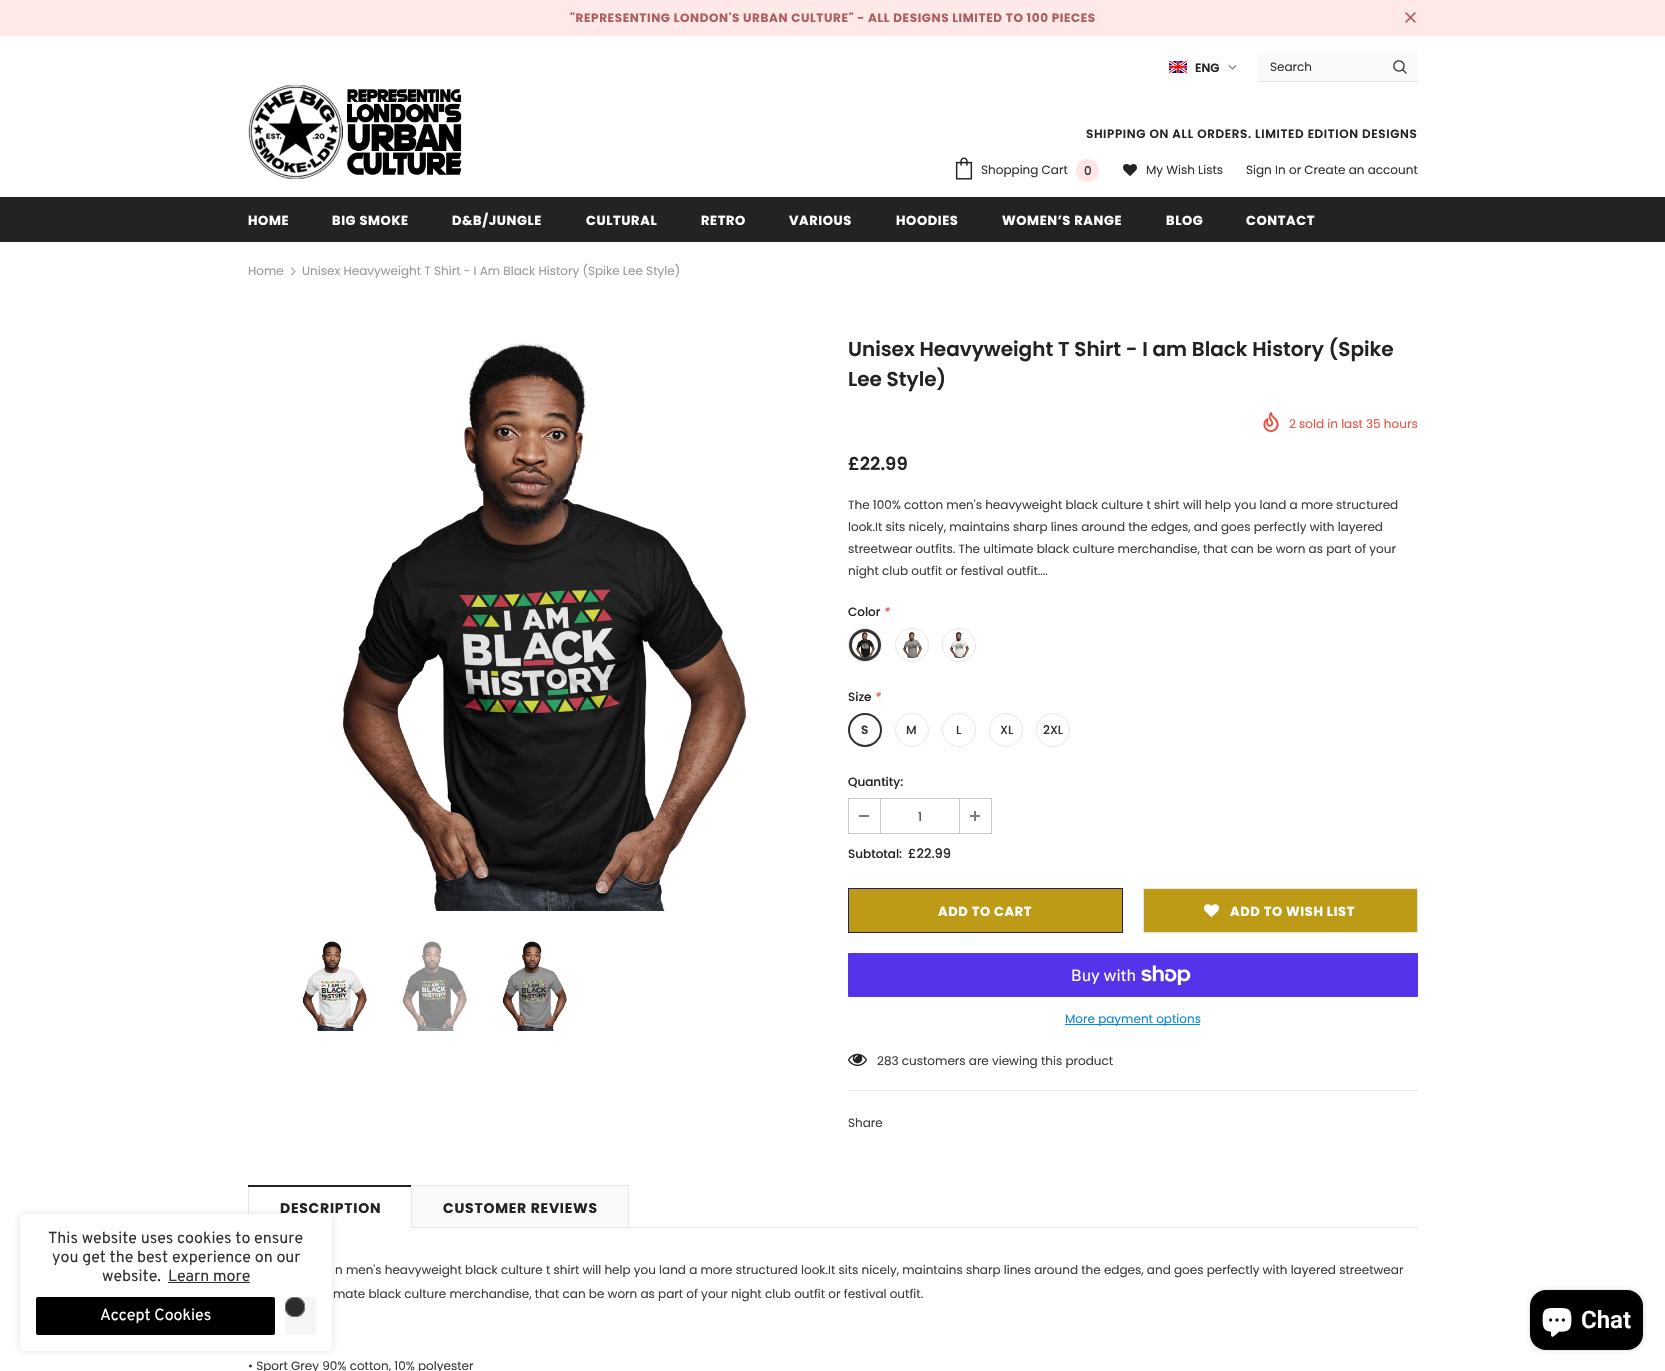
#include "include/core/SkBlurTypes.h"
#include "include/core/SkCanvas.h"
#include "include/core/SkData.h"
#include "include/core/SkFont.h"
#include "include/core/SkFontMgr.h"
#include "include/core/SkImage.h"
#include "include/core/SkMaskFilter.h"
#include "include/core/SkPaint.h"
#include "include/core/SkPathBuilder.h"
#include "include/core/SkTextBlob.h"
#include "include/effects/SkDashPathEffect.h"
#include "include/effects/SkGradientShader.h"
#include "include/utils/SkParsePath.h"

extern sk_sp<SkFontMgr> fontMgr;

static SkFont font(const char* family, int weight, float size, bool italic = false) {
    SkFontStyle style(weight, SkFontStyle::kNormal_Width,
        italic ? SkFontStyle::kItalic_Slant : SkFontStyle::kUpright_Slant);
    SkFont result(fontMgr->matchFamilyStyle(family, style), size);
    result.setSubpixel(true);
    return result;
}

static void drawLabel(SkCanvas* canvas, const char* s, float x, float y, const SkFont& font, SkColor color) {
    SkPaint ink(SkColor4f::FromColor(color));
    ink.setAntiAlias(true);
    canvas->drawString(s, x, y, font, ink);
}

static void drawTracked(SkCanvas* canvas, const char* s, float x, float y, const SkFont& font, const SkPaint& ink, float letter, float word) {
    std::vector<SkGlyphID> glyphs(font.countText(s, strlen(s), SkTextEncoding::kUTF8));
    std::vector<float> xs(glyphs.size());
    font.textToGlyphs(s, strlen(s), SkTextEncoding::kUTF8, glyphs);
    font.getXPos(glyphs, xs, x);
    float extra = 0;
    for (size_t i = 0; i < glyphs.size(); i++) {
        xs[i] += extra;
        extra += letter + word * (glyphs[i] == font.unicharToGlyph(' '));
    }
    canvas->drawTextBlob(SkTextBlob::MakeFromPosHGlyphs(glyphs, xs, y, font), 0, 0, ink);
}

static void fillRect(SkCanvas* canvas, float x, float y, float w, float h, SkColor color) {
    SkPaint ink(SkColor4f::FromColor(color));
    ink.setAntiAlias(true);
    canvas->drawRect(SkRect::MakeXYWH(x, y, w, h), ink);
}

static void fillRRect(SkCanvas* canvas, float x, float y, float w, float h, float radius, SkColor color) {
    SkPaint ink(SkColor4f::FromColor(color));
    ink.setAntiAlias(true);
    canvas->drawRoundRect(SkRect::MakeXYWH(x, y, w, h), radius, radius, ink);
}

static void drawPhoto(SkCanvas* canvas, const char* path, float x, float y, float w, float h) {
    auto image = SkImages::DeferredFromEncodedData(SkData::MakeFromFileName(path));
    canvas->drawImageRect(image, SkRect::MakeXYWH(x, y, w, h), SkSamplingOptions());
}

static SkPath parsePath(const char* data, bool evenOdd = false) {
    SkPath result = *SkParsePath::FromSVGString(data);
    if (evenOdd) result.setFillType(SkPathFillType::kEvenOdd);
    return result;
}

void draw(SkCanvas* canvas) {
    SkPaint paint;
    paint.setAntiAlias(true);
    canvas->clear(0xFFFFFFFF);
    fillRect(canvas, 0, 0, 1665, 36, 0xFFFFE8E8);
    SkFont font1 = font("Poppins", 700, 12);
    paint.setColor(0xFFB05D5D);
    drawTracked(canvas, "\"REPRESENTING LONDON'S URBAN CULTURE\" - ALL DESIGNS LIMITED TO 100 PIECES", 570, 22, font1, paint, 0.6f, 0);
    drawPhoto(canvas, "assets/img1.png", 1405, 12, 11, 11);
    drawPhoto(canvas, "assets/img2.png", 1169, 61, 18, 12);
    SkFont font2 = font("Poppins", 600, 12);
    drawLabel(canvas, "ENG", 1195, 72, font2, 0xFF232323);
    drawPhoto(canvas, "assets/img3.png", 1228, 65, 9, 5);
    fillRect(canvas, 1258, 52, 160, 29, 0xFFFAFAFA);
    fillRect(canvas, 1258, 81, 160, 1, 0xFFE7E7E7);
    SkFont font3 = font("Poppins", 400, 12);
    drawLabel(canvas, "Search", 1270, 71, font3, 0xFF323232);
    drawPhoto(canvas, "assets/img4.png", 1393, 60, 14, 14);
    drawPhoto(canvas, "assets/img5.png", 248, 85, 214, 95);
    paint.setColor(0xFF232323);
    drawTracked(canvas, "SHIPPING ON ALL ORDERS. LIMITED EDITION DESIGNS", 1086, 138, font2, paint, 0.6f, 0);
    drawPhoto(canvas, "assets/img6.png", 955, 157, 18, 23);
    drawLabel(canvas, "Shopping Cart", 981, 174, font3, 0xFF323232);
    paint.setColor(0xFFFFE5E5);
    canvas->drawCircle(1087.5f, 170.5f, 11.5f, paint);
    SkFont font4 = font("Poppins", 500, 12);
    drawLabel(canvas, "0", 1084, 175, font4, 0xFF323232);
    drawPhoto(canvas, "assets/img7.png", 1123, 164, 14, 12);
    drawLabel(canvas, "My Wish Lists", 1146, 174, font3, 0xFF323232);
    drawLabel(canvas, "Sign In", 1246, 174, font3, 0xFF323232);
    drawLabel(canvas, "or Create an account", 1289, 174, font3, 0xFF323232);
    fillRect(canvas, 0, 197, 1665, 45, 0xFF232323);
    SkFont font5 = font("Poppins", 700, 13);
    paint.setColor(0xFFFFFFFF);
    drawTracked(canvas, "HOME", 248, 225, font5, paint, 0.6f, 0);
    drawTracked(canvas, "BIG SMOKE", 332, 225, font5, paint, 0.6f, 0);
    drawTracked(canvas, "D&B/JUNGLE", 452, 225, font5, paint, 0.6f, 0);
    drawTracked(canvas, "CULTURAL", 586, 225, font5, paint, 0.6f, 0);
    drawTracked(canvas, "RETRO", 701, 225, font5, paint, 0.6f, 0);
    drawTracked(canvas, "VARIOUS", 789, 225, font5, paint, 0.6f, 0);
    drawTracked(canvas, "HOODIES", 896, 225, font5, paint, 0.6f, 0);
    drawTracked(canvas, "WOMEN’S RANGE", 1002, 225, font5, paint, 0.6f, 0);
    drawTracked(canvas, "BLOG", 1166, 225, font5, paint, 0.6f, 0);
    drawTracked(canvas, "CONTACT", 1246, 225, font5, paint, 0.6f, 0);
    fillRect(canvas, 248, 1185, 1, 29, 0xFFE6E6E6);
    canvas->save();
    canvas->clipPath(parsePath("M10 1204H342V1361H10ZM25 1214H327C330 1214 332 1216 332 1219V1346C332 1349 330 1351 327 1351H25C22 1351 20 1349 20 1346V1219C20 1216 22 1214 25 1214Z", true), true);
    paint.setColor(0x1F000000);
    paint.setMaskFilter(SkMaskFilter::MakeBlur(kNormal_SkBlurStyle, 3));
    canvas->drawRoundRect(SkRect::MakeXYWH(20, 1214, 312, 137), 5, 5, paint);
    paint.setMaskFilter(nullptr);
    canvas->restore();
    SkFont font6 = font("Overpass", 400, 16);
    drawLabel(canvas, "This website uses cookies to ensure", 48, 1243, font6, 0xFF323232);
    drawLabel(canvas, "you get the best experience on our", 52, 1262, font6, 0xFF323232);
    drawLabel(canvas, "website.", 102, 1281, font6, 0xFF323232);
    drawLabel(canvas, "Learn more", 168, 1281, font6, 0xFF323232);
    fillRect(canvas, 168, 1282, 82, 1, 0xFF2D2D2D);
    fillRRect(canvas, 36, 1297, 239, 38, 2, 0xFF000000);
    drawLabel(canvas, "Accept Cookies", 100, 1320, font6, 0xFFFFFFFF);
    fillRRect(canvas, 285, 1297, 31, 38, 2, 0xFFF4F6F8);
    drawPhoto(canvas, "assets/img8.png", 285, 1297, 20, 20);
    drawLabel(canvas, "Home", 248, 275, font3, 0xFF999999);
    drawPhoto(canvas, "assets/img9.png", 291, 267, 5, 9);
    drawLabel(canvas, "Unisex Heavyweight T Shirt - I Am Black History (Spike Lee Style)", 302, 275, font3, 0xFF999999);
    drawPhoto(canvas, "assets/img10.png", 342, 343, 404, 568);
    drawPhoto(canvas, "assets/img11.png", 302, 941, 65, 90);
    drawPhoto(canvas, "assets/img12.png", 402, 941, 65, 90);
    drawPhoto(canvas, "assets/img13.png", 502, 941, 65, 90);
    SkFont font7 = font("Poppins", 600, 20);
    drawLabel(canvas, "Unisex Heavyweight T Shirt - I am Black History (Spike", 848, 356, font7, 0xFF232323);
    drawLabel(canvas, "Lee Style)", 848, 386, font7, 0xFF232323);
    drawPhoto(canvas, "assets/img14.png", 1263, 412, 16, 20);
    drawLabel(canvas, "2 sold in last 35 hours", 1289, 428, font3, 0xFFE95144);
    SkFont font8 = font("Poppins", 600, 18);
    drawLabel(canvas, "£22.99", 848, 470, font8, 0xFF232323);
    drawLabel(canvas, "The 100% cotton men's heavyweight black culture t shirt will help you land a more structured", 848, 509, font3, 0xFF3C3C3C);
    drawLabel(canvas, "look.It sits nicely, maintains sharp lines around the edges, and goes perfectly with layered", 848, 531, font3, 0xFF3C3C3C);
    drawLabel(canvas, "streetwear outfits. The ultimate black culture merchandise, that can be worn as part of your", 848, 553, font3, 0xFF3C3C3C);
    drawLabel(canvas, "night club outfit or festival outfit....", 848, 575, font3, 0xFF3C3C3C);
    drawLabel(canvas, "Color", 848, 616, font4, 0xFF232323);
    SkFont font9 = font("Poppins", 500, 12, true);
    drawLabel(canvas, "*", 883, 616, font9, 0xFFE95144);
    paint.setStroke(true);
    paint.setStrokeWidth(1);
    paint.setColor(0xFFE7E7E7);
    canvas->drawCircle(865, 645, 16.5f, paint);
    drawPhoto(canvas, "assets/img15.png", 856, 632, 19, 26);
    paint.setStrokeWidth(3);
    paint.setColor(0xFF323232);
    canvas->drawCircle(865, 645, 14.5f, paint);
    paint.setStrokeWidth(1);
    paint.setColor(0xFFE7E7E7);
    canvas->drawCircle(912, 645, 16.5f, paint);
    drawPhoto(canvas, "assets/img16.png", 903, 632, 19, 26);
    canvas->drawCircle(959, 645, 16.5f, paint);
    drawPhoto(canvas, "assets/img17.png", 950, 632, 19, 26);
    drawLabel(canvas, "Size", 848, 701, font4, 0xFF232323);
    drawLabel(canvas, "*", 874, 701, font9, 0xFFE95144);
    canvas->drawCircle(865, 730, 16.5f, paint);
    paint.setStrokeWidth(2);
    paint.setColor(0xFF323232);
    canvas->drawCircle(865, 730, 16, paint);
    drawLabel(canvas, "S", 861, 734, font2, 0xFF323232);
    paint.setStrokeWidth(1);
    paint.setColor(0xFFE7E7E7);
    canvas->drawCircle(912, 730, 16.5f, paint);
    drawLabel(canvas, "M", 906, 734, font4, 0xFF323232);
    canvas->drawCircle(959, 730, 16.5f, paint);
    drawLabel(canvas, "L", 956, 734, font4, 0xFF323232);
    canvas->drawCircle(1006, 730, 16.5f, paint);
    drawLabel(canvas, "XL", 1000, 734, font4, 0xFF323232);
    canvas->drawCircle(1053, 730, 16.5f, paint);
    drawLabel(canvas, "2XL", 1043, 734, font4, 0xFF323232);
    drawLabel(canvas, "Quantity:", 848, 786, font4, 0xFF232323);
    paint.setColor(0xFFCBCBCB);
    canvas->drawRect(SkRect::MakeXYWH(848.5f, 798.5f, 143, 35), paint);
    fillRect(canvas, 880, 799, 1, 34, 0xFFCBCBCB);
    fillRect(canvas, 859, 815, 10, 2, 0xFF7B7B7B);
    drawLabel(canvas, "1", 918, 821, font3, 0xFF323232);
    fillRect(canvas, 959, 799, 1, 34, 0xFFCBCBCB);
    fillRect(canvas, 970, 815, 10, 2, 0xFF7B7B7B);
    fillRect(canvas, 974, 811, 2, 10, 0xFF7B7B7B);
    drawLabel(canvas, "Subtotal:", 848, 858, font4, 0xFF232323);
    SkFont font10 = font("Poppins", 500, 13);
    drawLabel(canvas, "£22.99", 908, 858, font10, 0xFF232323);
    paint.setStroke(false);
    paint.setColor(0xFFBD9B16);
    canvas->drawRect(SkRect::MakeXYWH(848.5f, 888.5f, 274, 44), paint);
    paint.setStroke(true);
    paint.setColor(0xFF212175);
    canvas->drawRect(SkRect::MakeXYWH(848.5f, 888.5f, 274, 44), paint);
    paint.setStroke(false);
    paint.setColor(0xFFFFFFFF);
    drawTracked(canvas, "ADD TO CART", 938, 916, font5, paint, 0.6f, 0);
    paint.setColor(0xFFBD9B16);
    canvas->drawRect(SkRect::MakeXYWH(1143.5f, 888.5f, 274, 44), paint);
    paint.setStroke(true);
    paint.setColor(0xFFE6E6E6);
    canvas->drawRect(SkRect::MakeXYWH(1143.5f, 888.5f, 274, 44), paint);
    drawPhoto(canvas, "assets/img18.png", 1204, 904, 15, 13);
    paint.setStroke(false);
    paint.setColor(0xFFFFFFFF);
    drawTracked(canvas, "ADD TO WISH LIST", 1230, 916, font5, paint, 0.6f, 0);
    fillRRect(canvas, 848, 953, 570, 44, 1, 0xFF5433EB);
    SkFont font11 = font("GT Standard", 400, 16);
    drawLabel(canvas, "Buy with", 1071, 981, font11, 0xFFFFFFFF);
    drawPhoto(canvas, "assets/img19.png", 1141, 965, 50, 20);
    fillRect(canvas, 1065, 1024, 135, 1, 0xFF0688E2);
    drawLabel(canvas, "More payment options", 1065, 1023, font3, 0xFF0688E2);
    fillRect(canvas, 848, 1090, 570, 1, 0xFFE6E6E6);
    drawPhoto(canvas, "assets/img20.png", 848, 1053, 19, 13);
    drawLabel(canvas, "283 customers are viewing this product", 877, 1065, font3, 0xFF3C3C3C);
    drawLabel(canvas, "Share", 848, 1127, font3, 0xFF3C3C3C);
    fillRect(canvas, 411, 1227, 1007, 1, 0xFFE6E6E6);
    fillRect(canvas, 248, 1185, 164, 2, 0xFF232323);
    SkFont font12 = font("Poppins", 700, 14);
    paint.setColor(0xFF232323);
    drawTracked(canvas, "DESCRIPTION", 280, 1213, font12, paint, 0.75f, 0);
    fillRect(canvas, 412, 1186, 216, 41, 0xFFFAFAFA);
    fillRect(canvas, 411, 1185, 218, 1, 0xFFE6E6E6);
    fillRect(canvas, 628, 1185, 1, 42, 0xFFE6E6E6);
    fillRect(canvas, 411, 1185, 1, 42, 0xFFE6E6E6);
    drawTracked(canvas, "CUSTOMER REVIEWS", 443, 1213, font12, paint, 0.75f, 0);
    drawLabel(canvas, "n men's heavyweight black culture t shirt will help you land a more structured look.It sits nicely, maintains sharp lines around the edges, and goes perfectly with layered streetwear", 335, 1274, font3, 0xFF3C3C3C);
    drawLabel(canvas, "mate black culture merchandise, that can be worn as part of your night club outfit or festival outfit.", 333, 1298, font3, 0xFF3C3C3C);
    drawLabel(canvas, "• Sport Grey 90% cotton, 10% polyester", 248, 1370, font3, 0xFF3C3C3C);
    paint.setColor(0x26000000);
    paint.setMaskFilter(SkMaskFilter::MakeBlur(kNormal_SkBlurStyle, 2.5f));
    canvas->drawRoundRect(SkRect::MakeXYWH(1530, 1290, 113, 60), 16, 16, paint);
    paint.setMaskFilter(nullptr);
    fillRRect(canvas, 1530, 1290, 113, 60, 16, 0xFF000000);
    drawPhoto(canvas, "assets/img21.png", 1542, 1308, 30, 29);
    SkFont font13 = font("Roboto", 600, 24);
    drawLabel(canvas, "Chat", 1581, 1328, font13, 0xFFFFFFFF);
}
